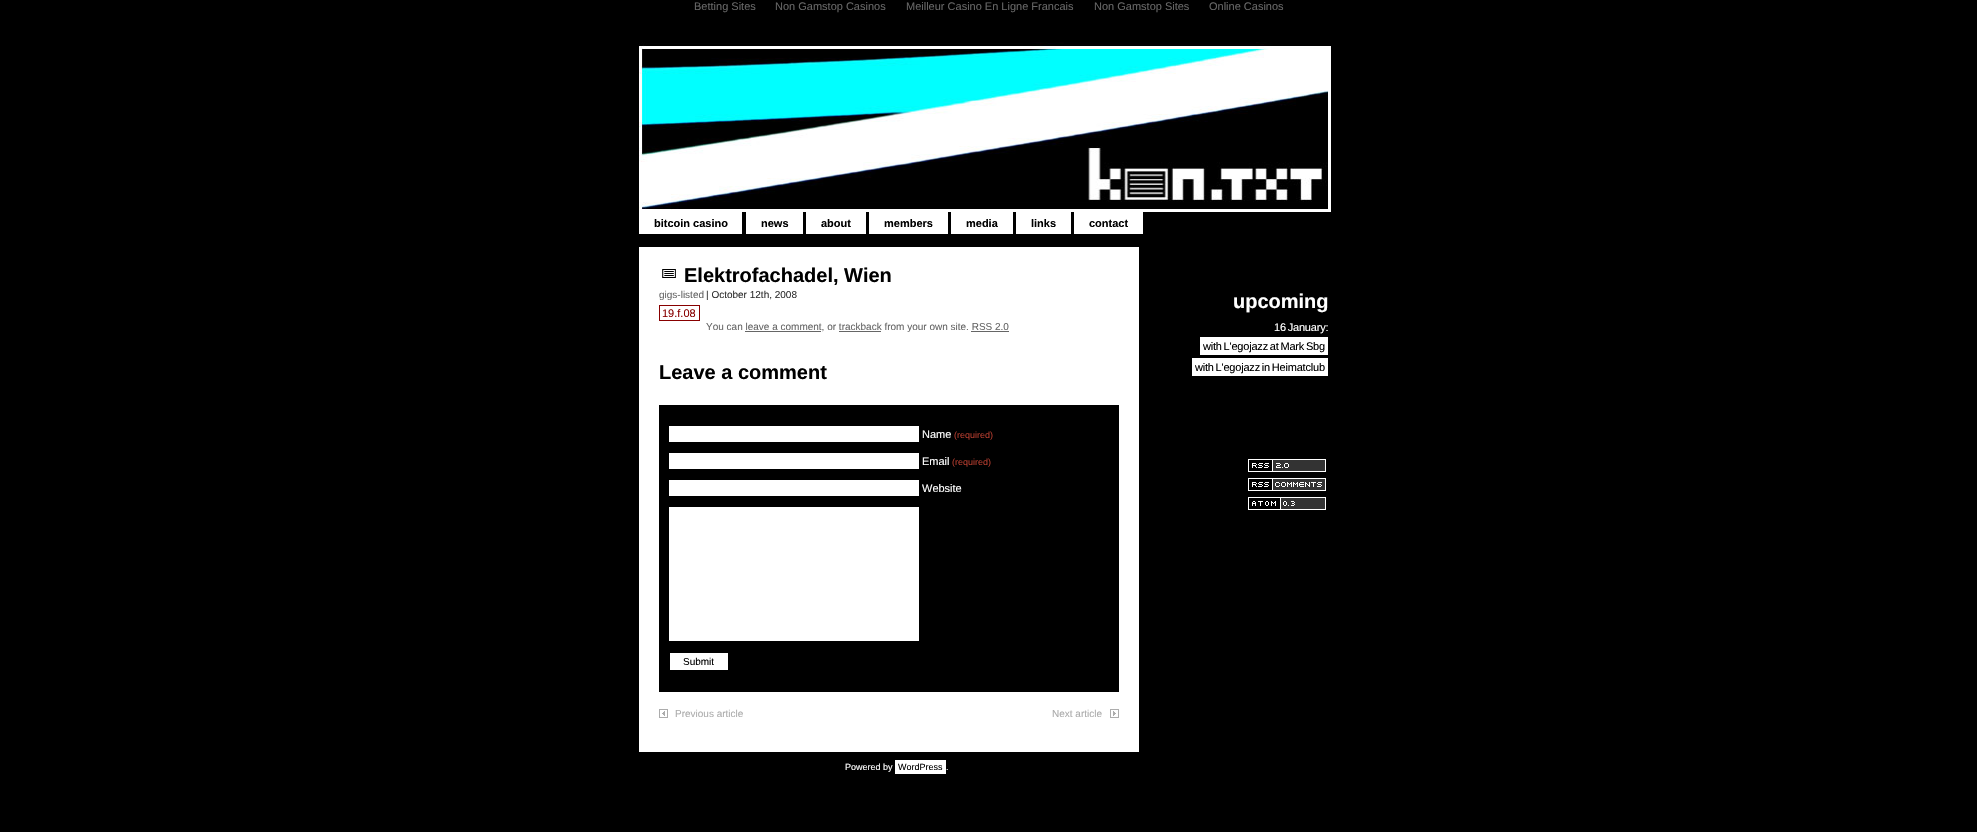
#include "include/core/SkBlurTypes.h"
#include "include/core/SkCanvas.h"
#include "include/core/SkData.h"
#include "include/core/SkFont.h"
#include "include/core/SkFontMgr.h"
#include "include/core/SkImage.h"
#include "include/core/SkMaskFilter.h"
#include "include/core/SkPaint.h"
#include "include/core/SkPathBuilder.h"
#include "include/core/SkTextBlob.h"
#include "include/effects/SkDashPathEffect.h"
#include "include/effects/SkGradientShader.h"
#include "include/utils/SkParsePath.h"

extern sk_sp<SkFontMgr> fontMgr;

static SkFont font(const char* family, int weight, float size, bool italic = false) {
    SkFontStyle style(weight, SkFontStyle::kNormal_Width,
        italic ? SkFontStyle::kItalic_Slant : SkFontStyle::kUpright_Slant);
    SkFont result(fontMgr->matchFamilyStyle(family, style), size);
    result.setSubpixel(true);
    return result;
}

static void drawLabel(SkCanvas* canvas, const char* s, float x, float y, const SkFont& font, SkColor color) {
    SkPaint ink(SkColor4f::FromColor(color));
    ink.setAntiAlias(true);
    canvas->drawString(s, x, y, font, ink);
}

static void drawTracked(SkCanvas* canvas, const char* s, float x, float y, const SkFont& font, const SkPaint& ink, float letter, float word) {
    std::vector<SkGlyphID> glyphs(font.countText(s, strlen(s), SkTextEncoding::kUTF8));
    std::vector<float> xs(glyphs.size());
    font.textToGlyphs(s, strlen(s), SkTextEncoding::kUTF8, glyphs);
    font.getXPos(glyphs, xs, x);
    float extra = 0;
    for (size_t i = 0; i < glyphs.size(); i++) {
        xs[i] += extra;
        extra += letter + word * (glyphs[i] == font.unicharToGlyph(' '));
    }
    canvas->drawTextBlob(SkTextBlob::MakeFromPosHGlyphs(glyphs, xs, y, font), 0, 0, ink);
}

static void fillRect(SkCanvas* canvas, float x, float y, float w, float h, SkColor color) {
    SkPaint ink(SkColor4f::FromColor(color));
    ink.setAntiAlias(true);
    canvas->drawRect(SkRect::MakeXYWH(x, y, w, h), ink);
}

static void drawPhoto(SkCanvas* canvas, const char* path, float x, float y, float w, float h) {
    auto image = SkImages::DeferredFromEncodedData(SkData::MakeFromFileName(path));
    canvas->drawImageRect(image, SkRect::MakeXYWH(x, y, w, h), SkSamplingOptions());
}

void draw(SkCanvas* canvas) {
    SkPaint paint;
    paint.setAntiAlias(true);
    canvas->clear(0xFF000000);
    SkFont font1 = font("Liberation Sans", 400, 11);
    drawLabel(canvas, "Betting Sites", 694, 10, font1, 0xFF666666);
    drawLabel(canvas, "Non Gamstop Casinos", 775, 10, font1, 0xFF666666);
    drawLabel(canvas, "Meilleur Casino En Ligne Francais", 906, 10, font1, 0xFF666666);
    drawLabel(canvas, "Non Gamstop Sites", 1094, 10, font1, 0xFF666666);
    drawLabel(canvas, "Online Casinos", 1209, 10, font1, 0xFF666666);
    drawPhoto(canvas, "assets/img1.png", 639, 42, 692, 170);
    fillRect(canvas, 639, 212, 103, 22, 0xFFFFFFFF);
    SkFont font2 = font("Liberation Sans", 700, 11);
    drawLabel(canvas, "bitcoin casino", 654, 227, font2, 0xFF000000);
    fillRect(canvas, 746, 212, 57, 22, 0xFFFFFFFF);
    drawLabel(canvas, "news", 761, 227, font2, 0xFF000000);
    fillRect(canvas, 806, 212, 60, 22, 0xFFFFFFFF);
    drawLabel(canvas, "about", 821, 227, font2, 0xFF000000);
    fillRect(canvas, 869, 212, 79, 22, 0xFFFFFFFF);
    drawLabel(canvas, "members", 884, 227, font2, 0xFF000000);
    fillRect(canvas, 951, 212, 62, 22, 0xFFFFFFFF);
    drawLabel(canvas, "media", 966, 227, font2, 0xFF000000);
    fillRect(canvas, 1016, 212, 55, 22, 0xFFFFFFFF);
    drawLabel(canvas, "links", 1031, 227, font2, 0xFF000000);
    fillRect(canvas, 1074, 212, 69, 22, 0xFFFFFFFF);
    drawLabel(canvas, "contact", 1089, 227, font2, 0xFF000000);
    fillRect(canvas, 639, 247, 500, 505, 0xFFFFFFFF);
    drawPhoto(canvas, "assets/img2.png", 662, 269, 14, 9);
    SkFont font3 = font("Liberation Sans", 700, 20);
    drawLabel(canvas, "Elektrofachadel, Wien", 684, 282, font3, 0xFF000000);
    SkFont font4 = font("Liberation Sans", 400, 10);
    drawLabel(canvas, "gigs-listed", 659, 298, font4, 0xFF666666);
    drawLabel(canvas, "| October 12th, 2008", 706, 298, font4, 0xFF333333);
    fillRect(canvas, 659, 305, 41, 1, 0xFF880000);
    fillRect(canvas, 699, 305, 1, 16, 0xFF880000);
    fillRect(canvas, 659, 320, 41, 1, 0xFF880000);
    fillRect(canvas, 659, 305, 1, 16, 0xFF880000);
    drawLabel(canvas, "19.f.08", 662, 317, font1, 0xFF880000);
    drawLabel(canvas, "You can leave a comment, or trackback from your own site. RSS 2.0", 706, 330, font4, 0xFF666666);
    fillRect(canvas, 745, 331, 76, 1, 0xFF666666);
    fillRect(canvas, 839, 331, 42, 1, 0xFF666666);
    fillRect(canvas, 971, 331, 38, 1, 0xFF666666);
    drawLabel(canvas, "Leave a comment", 659, 379, font3, 0xFF000000);
    fillRect(canvas, 659, 405, 460, 287, 0xFF000000);
    fillRect(canvas, 669, 426, 250, 16, 0xFFFFFFFF);
    drawLabel(canvas, "Name", 922, 438, font1, 0xFFFFFFFF);
    SkFont font5 = font("Liberation Sans", 400, 9);
    drawLabel(canvas, "(required)", 954, 438, font5, 0xFFB13B2D);
    fillRect(canvas, 669, 453, 250, 16, 0xFFFFFFFF);
    drawLabel(canvas, "Email", 922, 465, font1, 0xFFFFFFFF);
    drawLabel(canvas, "(required)", 952, 465, font5, 0xFFB13B2D);
    fillRect(canvas, 669, 480, 250, 16, 0xFFFFFFFF);
    drawLabel(canvas, "Website", 922, 492, font1, 0xFFFFFFFF);
    fillRect(canvas, 669, 507, 250, 134, 0xFFFFFFFF);
    fillRect(canvas, 670, 653, 58, 17, 0xFFFFFFFF);
    drawLabel(canvas, "Submit", 683, 665, font4, 0xFF000000);
    drawPhoto(canvas, "assets/img3.png", 659, 709, 9, 9);
    drawLabel(canvas, "Previous article", 675, 717, font4, 0xFFACACAC);
    drawLabel(canvas, "Next article", 1052, 717, font4, 0xFFACACAC);
    drawPhoto(canvas, "assets/img4.png", 1110, 709, 9, 9);
    drawLabel(canvas, "upcoming", 1233, 308, font3, 0xFFFFFFFF);
    paint.setColor(0xFFFFFFFF);
    drawTracked(canvas, "16 January:", 1274, 331, font1, paint, -0.2f, -1);
    fillRect(canvas, 1200, 337, 128, 18, 0xFFFFFFFF);
    paint.setColor(0xFF000000);
    drawTracked(canvas, "with L'egojazz at Mark Sbg", 1203, 350, font1, paint, -0.2f, -1);
    fillRect(canvas, 1192, 358, 136, 18, 0xFFFFFFFF);
    drawTracked(canvas, "with L'egojazz in Heimatclub", 1195, 371, font1, paint, -0.2f, -1);
    drawPhoto(canvas, "assets/img5.png", 1248, 459, 78, 13);
    drawPhoto(canvas, "assets/img6.png", 1248, 478, 78, 13);
    drawPhoto(canvas, "assets/img7.png", 1248, 497, 78, 13);
    drawLabel(canvas, "Powered by", 845, 770, font5, 0xFFFFFFFF);
    fillRect(canvas, 895, 760, 51, 14, 0xFFFFFFFF);
    drawLabel(canvas, "WordPress", 898, 770, font5, 0xFF000000);
    drawLabel(canvas, ".", 946, 770, font5, 0xFFFFFFFF);
}
